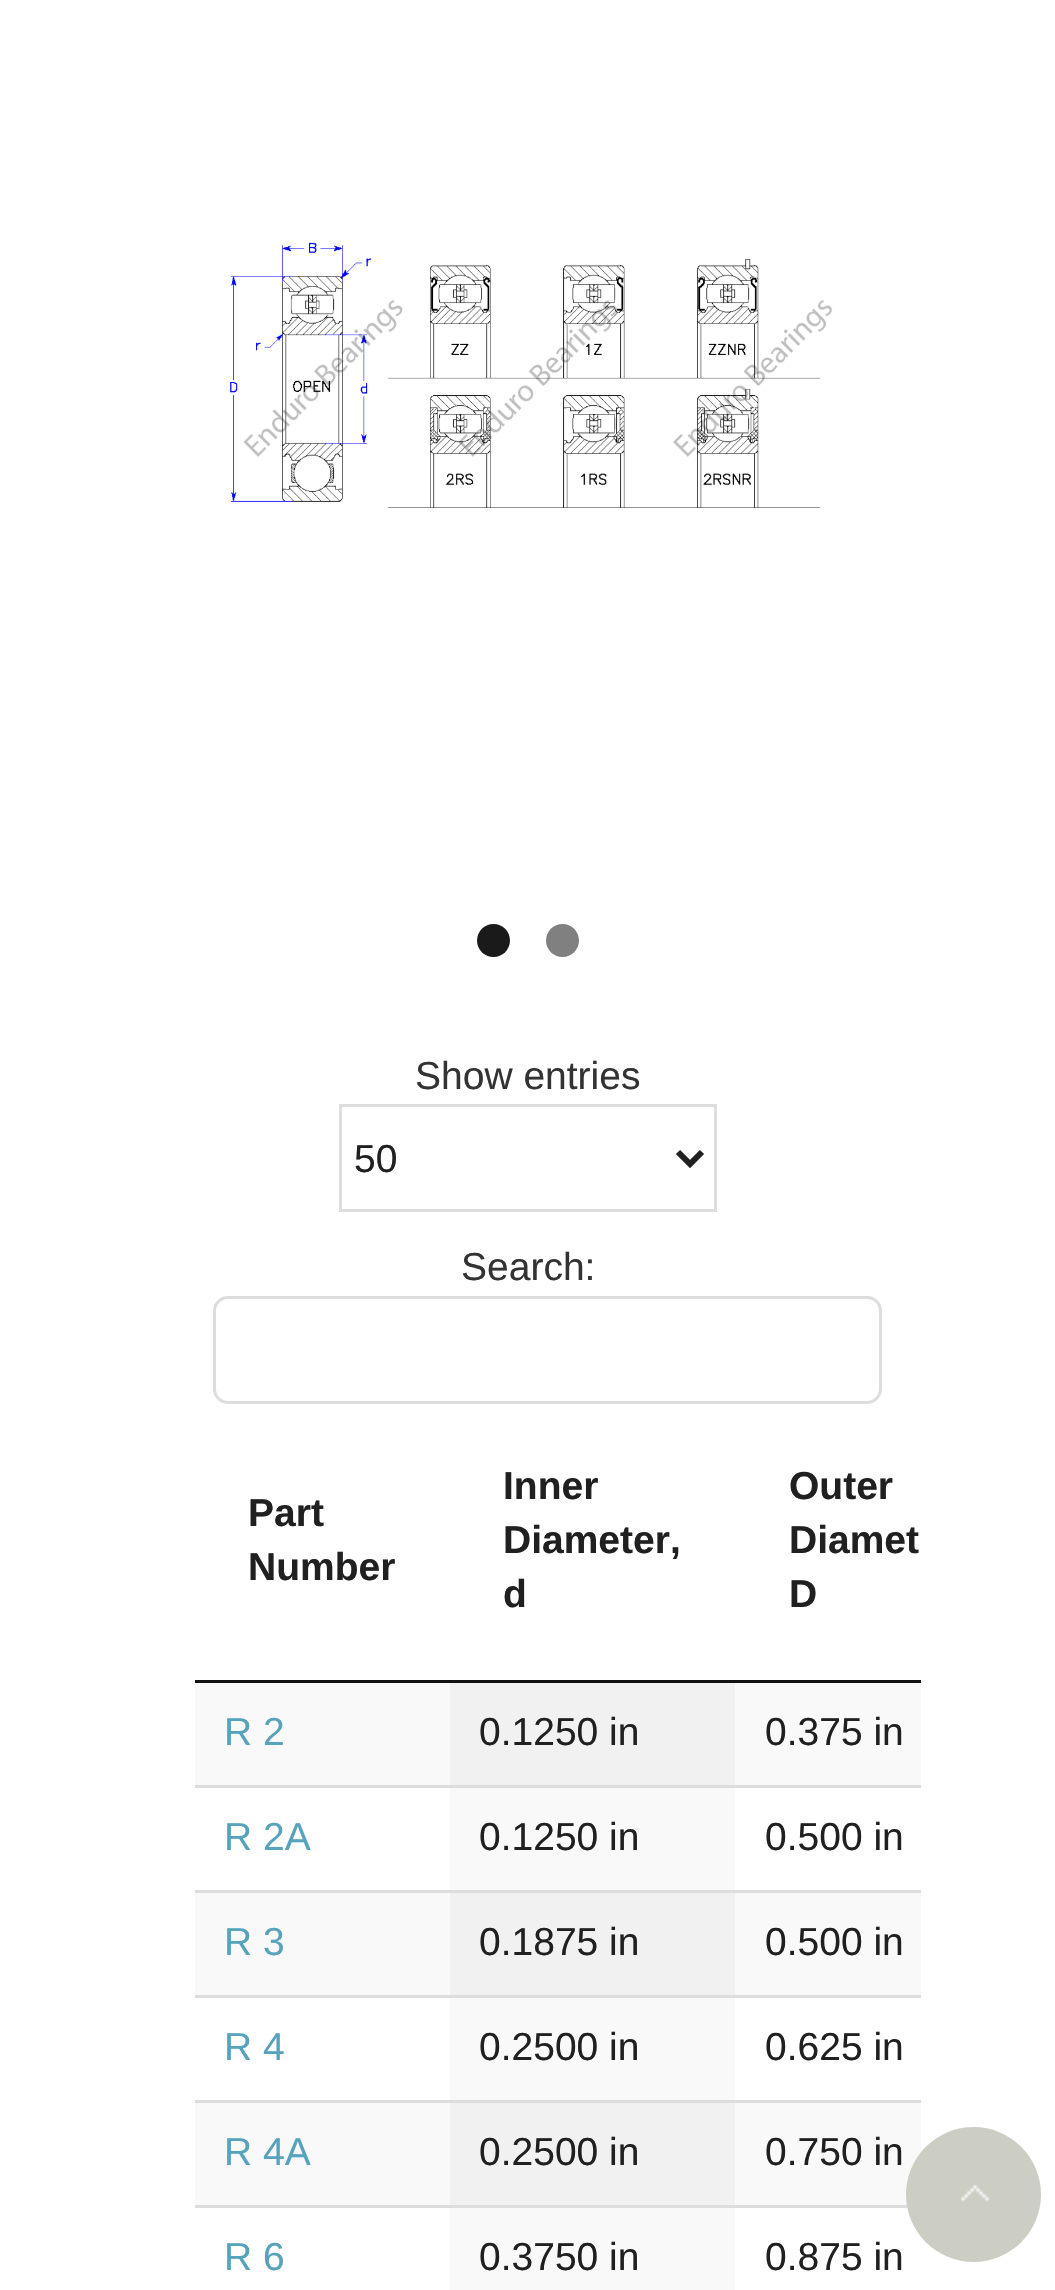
#include "include/core/SkBlurTypes.h"
#include "include/core/SkCanvas.h"
#include "include/core/SkData.h"
#include "include/core/SkFont.h"
#include "include/core/SkFontMgr.h"
#include "include/core/SkImage.h"
#include "include/core/SkMaskFilter.h"
#include "include/core/SkPaint.h"
#include "include/core/SkPathBuilder.h"
#include "include/core/SkTextBlob.h"
#include "include/effects/SkDashPathEffect.h"
#include "include/effects/SkGradientShader.h"
#include "include/utils/SkParsePath.h"

extern sk_sp<SkFontMgr> fontMgr;

static SkFont font(const char* family, int weight, float size, bool italic = false) {
    SkFontStyle style(weight, SkFontStyle::kNormal_Width,
        italic ? SkFontStyle::kItalic_Slant : SkFontStyle::kUpright_Slant);
    SkFont result(fontMgr->matchFamilyStyle(family, style), size);
    result.setSubpixel(true);
    return result;
}

static void drawLabel(SkCanvas* canvas, const char* s, float x, float y, const SkFont& font, SkColor color) {
    SkPaint ink(SkColor4f::FromColor(color));
    ink.setAntiAlias(true);
    canvas->drawString(s, x, y, font, ink);
}

static void fillRect(SkCanvas* canvas, float x, float y, float w, float h, SkColor color) {
    SkPaint ink(SkColor4f::FromColor(color));
    ink.setAntiAlias(true);
    canvas->drawRect(SkRect::MakeXYWH(x, y, w, h), ink);
}

static void drawPhoto(SkCanvas* canvas, const char* path, float x, float y, float w, float h) {
    auto image = SkImages::DeferredFromEncodedData(SkData::MakeFromFileName(path));
    canvas->drawImageRect(image, SkRect::MakeXYWH(x, y, w, h), SkSamplingOptions());
}

static SkPath parsePath(const char* data, bool evenOdd = false) {
    SkPath result = *SkParsePath::FromSVGString(data);
    if (evenOdd) result.setFillType(SkPathFillType::kEvenOdd);
    return result;
}

void draw(SkCanvas* canvas) {
    SkPaint paint;
    paint.setAntiAlias(true);
    canvas->clear(0xFFFFFFFF);
    drawPhoto(canvas, "assets/img1.png", 230, 242, 603, 266);
    paint.setColor(0xFF1A1A1A);
    canvas->drawCircle(493.5f, 940.5f, 16.5f, paint);
    paint.setColor(0xFF808080);
    canvas->drawCircle(562.5f, 940.5f, 16.5f, paint);
    SkFont font1 = font("Liberation Sans", 400, 39);
    drawLabel(canvas, "Show entries", 415, 1089, font1, 0xFF333333);
    paint.setStroke(true);
    paint.setStrokeWidth(3);
    paint.setColor(0xFFDDDDDD);
    canvas->drawRect(SkRect::MakeXYWH(340.5f, 1105.5f, 375, 105), paint);
    paint.setStrokeWidth(6);
    paint.setColor(0xFF202020);
    canvas->drawPath(parsePath("M678 1152L690 1164L702 1152"), paint);
    drawLabel(canvas, "50", 354, 1172, font1, 0xFF202020);
    drawLabel(canvas, "Search:", 461, 1280, font1, 0xFF333333);
    paint.setStrokeWidth(3);
    paint.setColor(0xFFDDDDDD);
    canvas->drawRoundRect(SkRect::MakeXYWH(214.5f, 1297.5f, 666, 105), 13.5f, 13.5f, paint);
    fillRect(canvas, 195, 1680, 726, 3, 0xFF111111);
    SkFont font2 = font("Liberation Sans", 700, 39);
    drawLabel(canvas, "Part", 248, 1526, font2, 0xFF202020);
    drawLabel(canvas, "Number", 248, 1580, font2, 0xFF202020);
    drawLabel(canvas, "Inner", 503, 1499, font2, 0xFF202020);
    drawLabel(canvas, "Diameter,", 503, 1553, font2, 0xFF202020);
    drawLabel(canvas, "d", 503, 1607, font2, 0xFF202020);
    drawLabel(canvas, "Outer", 789, 1499, font2, 0xFF202020);
    drawLabel(canvas, "Diamet", 789, 1553, font2, 0xFF202020);
    drawLabel(canvas, "D", 789, 1607, font2, 0xFF202020);
    fillRect(canvas, 195, 1683, 726, 102, 0xFFF9F9F9);
    drawLabel(canvas, "R 2", 224, 1745, font1, 0xFF57A2BC);
    fillRect(canvas, 450, 1683, 285, 102, 0xFFF1F1F1);
    drawLabel(canvas, "0.1250 in", 479, 1745, font1, 0xFF202020);
    drawLabel(canvas, "0.375 in", 765, 1745, font1, 0xFF202020);
    fillRect(canvas, 195, 1785, 726, 3, 0xFFDDDDDD);
    drawLabel(canvas, "R 2A", 224, 1850, font1, 0xFF57A2BC);
    fillRect(canvas, 450, 1788, 285, 102, 0xFFF9F9F9);
    drawLabel(canvas, "0.1250 in", 479, 1850, font1, 0xFF202020);
    drawLabel(canvas, "0.500 in", 765, 1850, font1, 0xFF202020);
    fillRect(canvas, 195, 1893, 726, 102, 0xFFF9F9F9);
    fillRect(canvas, 195, 1890, 726, 3, 0xFFDDDDDD);
    drawLabel(canvas, "R 3", 224, 1955, font1, 0xFF57A2BC);
    fillRect(canvas, 450, 1893, 285, 102, 0xFFF1F1F1);
    drawLabel(canvas, "0.1875 in", 479, 1955, font1, 0xFF202020);
    drawLabel(canvas, "0.500 in", 765, 1955, font1, 0xFF202020);
    fillRect(canvas, 195, 1995, 726, 3, 0xFFDDDDDD);
    drawLabel(canvas, "R 4", 224, 2060, font1, 0xFF57A2BC);
    fillRect(canvas, 450, 1998, 285, 102, 0xFFF9F9F9);
    drawLabel(canvas, "0.2500 in", 479, 2060, font1, 0xFF202020);
    drawLabel(canvas, "0.625 in", 765, 2060, font1, 0xFF202020);
    fillRect(canvas, 195, 2103, 726, 102, 0xFFF9F9F9);
    fillRect(canvas, 195, 2100, 726, 3, 0xFFDDDDDD);
    drawLabel(canvas, "R 4A", 224, 2165, font1, 0xFF57A2BC);
    fillRect(canvas, 450, 2103, 285, 102, 0xFFF1F1F1);
    drawLabel(canvas, "0.2500 in", 479, 2165, font1, 0xFF202020);
    drawLabel(canvas, "0.750 in", 765, 2165, font1, 0xFF202020);
    fillRect(canvas, 195, 2205, 726, 3, 0xFFDDDDDD);
    drawLabel(canvas, "R 6", 224, 2270, font1, 0xFF57A2BC);
    fillRect(canvas, 450, 2208, 285, 82, 0xFFF9F9F9);
    drawLabel(canvas, "0.3750 in", 479, 2270, font1, 0xFF202020);
    drawLabel(canvas, "0.875 in", 765, 2270, font1, 0xFF202020);
    paint.setStroke(false);
    paint.setColor(0xFCCBCCC2);
    canvas->drawCircle(973.5f, 2194.5f, 67.5f, paint);
    drawPhoto(canvas, "assets/img2.png", 960, 2184, 30, 18);
}
